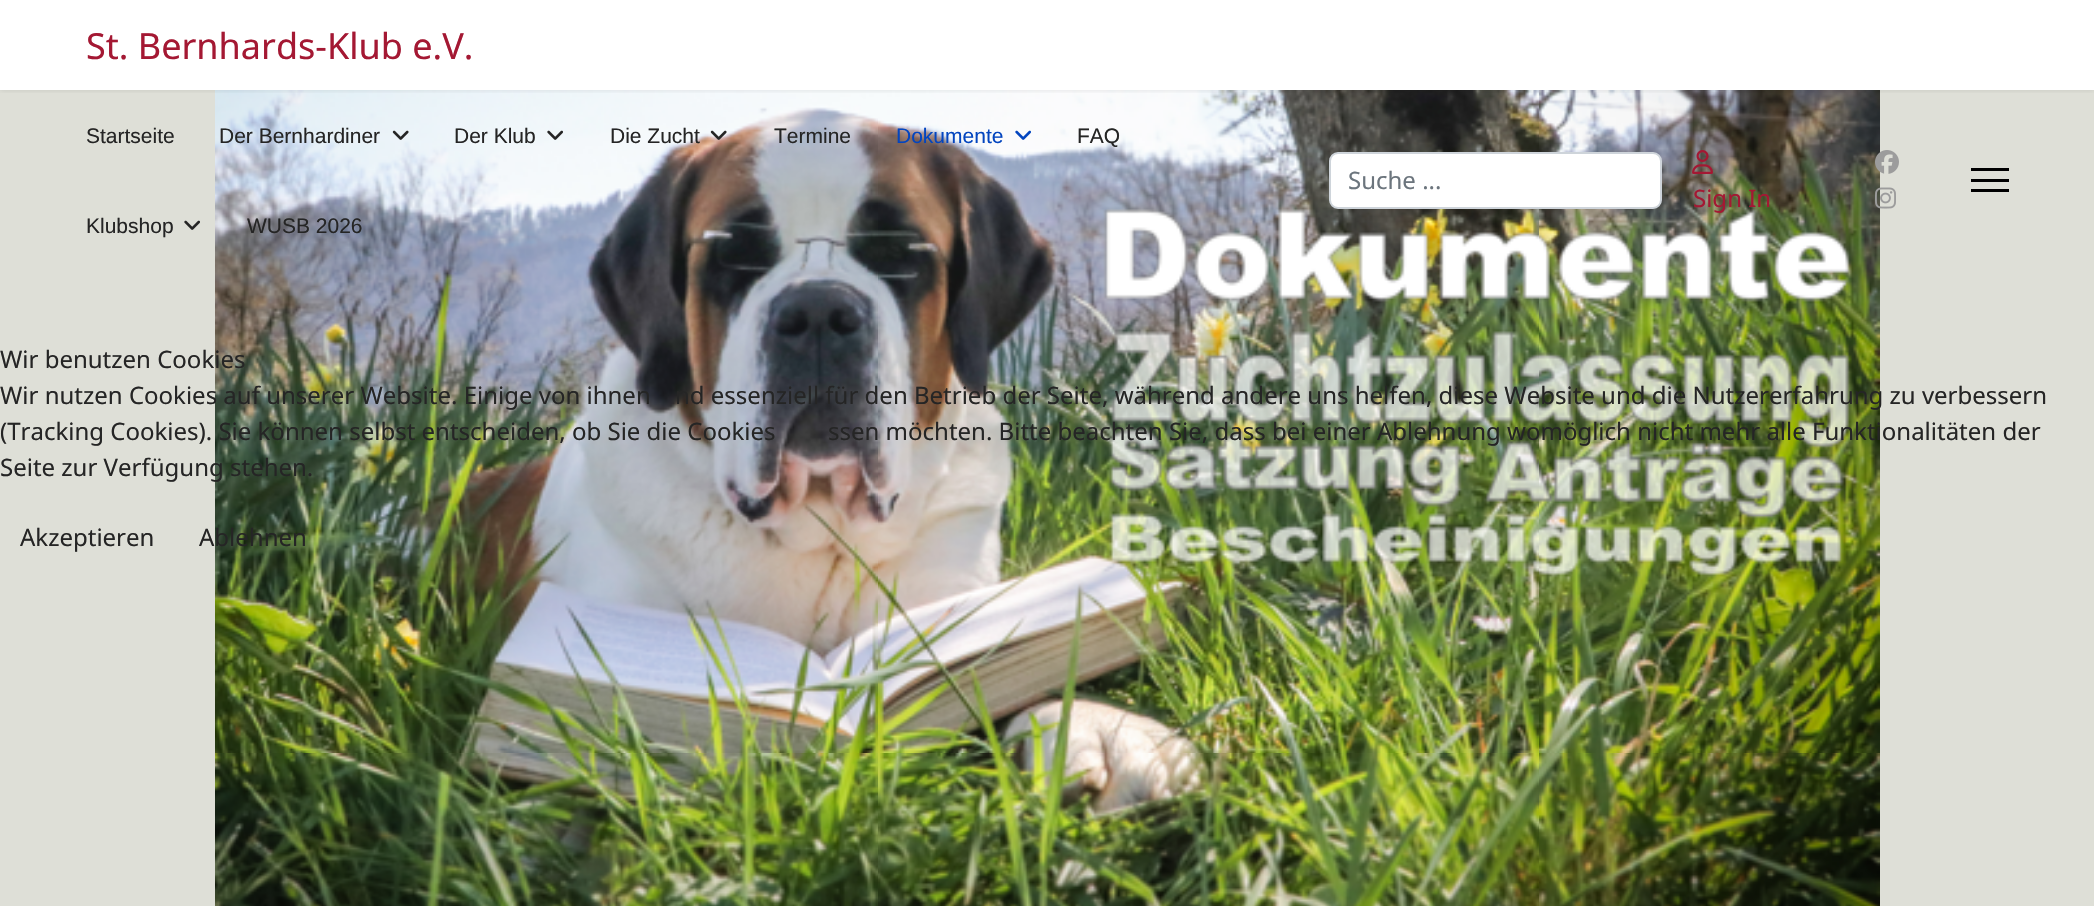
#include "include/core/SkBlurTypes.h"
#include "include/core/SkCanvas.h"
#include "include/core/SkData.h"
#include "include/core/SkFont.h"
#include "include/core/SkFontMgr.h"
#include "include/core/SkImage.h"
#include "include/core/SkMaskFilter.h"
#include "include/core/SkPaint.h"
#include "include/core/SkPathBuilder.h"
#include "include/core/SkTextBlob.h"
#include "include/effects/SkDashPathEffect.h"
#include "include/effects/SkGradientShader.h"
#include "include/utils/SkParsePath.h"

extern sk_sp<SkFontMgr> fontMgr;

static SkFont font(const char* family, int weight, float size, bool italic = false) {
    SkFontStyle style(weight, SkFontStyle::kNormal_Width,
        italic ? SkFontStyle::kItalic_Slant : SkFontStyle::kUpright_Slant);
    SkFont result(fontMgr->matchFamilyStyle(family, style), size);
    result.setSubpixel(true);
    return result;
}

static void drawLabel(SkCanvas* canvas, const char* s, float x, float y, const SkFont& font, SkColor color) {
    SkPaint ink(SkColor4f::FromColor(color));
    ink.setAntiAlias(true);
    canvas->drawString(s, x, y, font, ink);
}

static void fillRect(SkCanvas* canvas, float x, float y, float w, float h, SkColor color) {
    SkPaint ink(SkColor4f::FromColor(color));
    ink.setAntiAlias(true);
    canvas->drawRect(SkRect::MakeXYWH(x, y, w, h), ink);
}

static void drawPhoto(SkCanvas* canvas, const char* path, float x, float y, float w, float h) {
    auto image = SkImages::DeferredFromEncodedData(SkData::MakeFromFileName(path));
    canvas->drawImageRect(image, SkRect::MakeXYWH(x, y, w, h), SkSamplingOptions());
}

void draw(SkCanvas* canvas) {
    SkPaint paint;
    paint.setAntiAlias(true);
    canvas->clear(0xFFFFFFFF);
    fillRect(canvas, 0, 90, 2094, 816, 0xFFDEDFD7);
    drawPhoto(canvas, "assets/img9.png", 215, 90, 1665, 816);
    canvas->save();
    canvas->clipRect(SkRect::MakeXYWH(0, 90, 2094, 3));
    paint.setColor(0x1A000000);
    paint.setMaskFilter(SkMaskFilter::MakeBlur(kNormal_SkBlurStyle, 3));
    canvas->drawRect(SkRect::MakeXYWH(0, 0, 2094, 90), paint);
    paint.setMaskFilter(nullptr);
    canvas->restore();
    SkFont font1 = font("Noto Sans", 400, 36);
    drawLabel(canvas, "St. Bernhards-Klub e.V.", 86, 59, font1, 0xFFA41833);
    SkFont font2 = font("Liberation Sans", 400, 21);
    drawLabel(canvas, "Startseite", 86, 143, font2, 0xFF252525);
    drawLabel(canvas, "Der Bernhardiner", 219, 143, font2, 0xFF252525);
    drawPhoto(canvas, "assets/img1.png", 392, 130, 17, 10);
    drawLabel(canvas, "Der Klub", 454, 143, font2, 0xFF252525);
    drawPhoto(canvas, "assets/img2.png", 547, 130, 16, 10);
    drawLabel(canvas, "Die Zucht", 610, 143, font2, 0xFF252525);
    drawPhoto(canvas, "assets/img3.png", 710, 130, 17, 10);
    drawLabel(canvas, "Termine", 774, 143, font2, 0xFF252525);
    drawLabel(canvas, "Dokumente", 896, 143, font2, 0xFF0345BF);
    drawPhoto(canvas, "assets/img4.png", 1015, 130, 16, 10);
    drawLabel(canvas, "FAQ", 1077, 143, font2, 0xFF252525);
    drawLabel(canvas, "Klubshop", 86, 233, font2, 0xFF252525);
    drawPhoto(canvas, "assets/img5.png", 184, 220, 16, 10);
    drawLabel(canvas, "WUSB 2026", 247, 233, font2, 0xFF252525);
    paint.setColor(0xFFFFFFFF);
    canvas->drawRoundRect(SkRect::MakeXYWH(1330, 153, 331, 55), 8, 8, paint);
    paint.setStroke(true);
    paint.setStrokeWidth(2);
    paint.setColor(0xFFCED4DA);
    canvas->drawRoundRect(SkRect::MakeXYWH(1330, 153, 331, 55), 8, 8, paint);
    SkFont font3 = font("Noto Sans", 400, 24);
    drawLabel(canvas, "Suche ...", 1348, 189, font3, 0xFF6C757D);
    drawPhoto(canvas, "assets/img6.png", 1692, 150, 21, 24);
    drawLabel(canvas, "Sign In", 1693, 207, font3, 0xFFA41833);
    drawPhoto(canvas, "assets/img7.png", 1875, 150, 24, 24);
    drawPhoto(canvas, "assets/img8.png", 1875, 187, 21, 22);
    fillRect(canvas, 1971, 168, 38, 3, 0xFF000000);
    fillRect(canvas, 1971, 179, 38, 3, 0xFF000000);
    fillRect(canvas, 1971, 189, 38, 3, 0xFF000000);
    drawLabel(canvas, "Wir benutzen Cookies", 0, 368, font3, 0xFF252525);
    drawLabel(canvas, "Wir nutzen Cookies auf unserer Website. Einige von ihnen", 0, 404, font3, 0xFF252525);
    drawLabel(canvas, "nd essenziell für den Betrieb der Seite, während andere uns helfen, diese Website und die Nutzererfahrung zu verbessern", 675, 404, font3, 0xFF252525);
    drawLabel(canvas, "(Tracking Cookies). Sie können selbst entscheiden, ob Sie die Cookies", 0, 440, font3, 0xFF252525);
    drawLabel(canvas, "ssen möchten. Bitte beachten Sie, dass bei einer Ablehnung womöglich nicht mehr alle Funktionalitäten der", 828, 440, font3, 0xFF252525);
    drawLabel(canvas, "Seite zur Verfügung stehen.", 0, 476, font3, 0xFF252525);
    drawLabel(canvas, "Akzeptieren", 20, 546, font3, 0xFF252525);
    drawLabel(canvas, "Ablehnen", 199, 546, font3, 0xFF252525);
}
